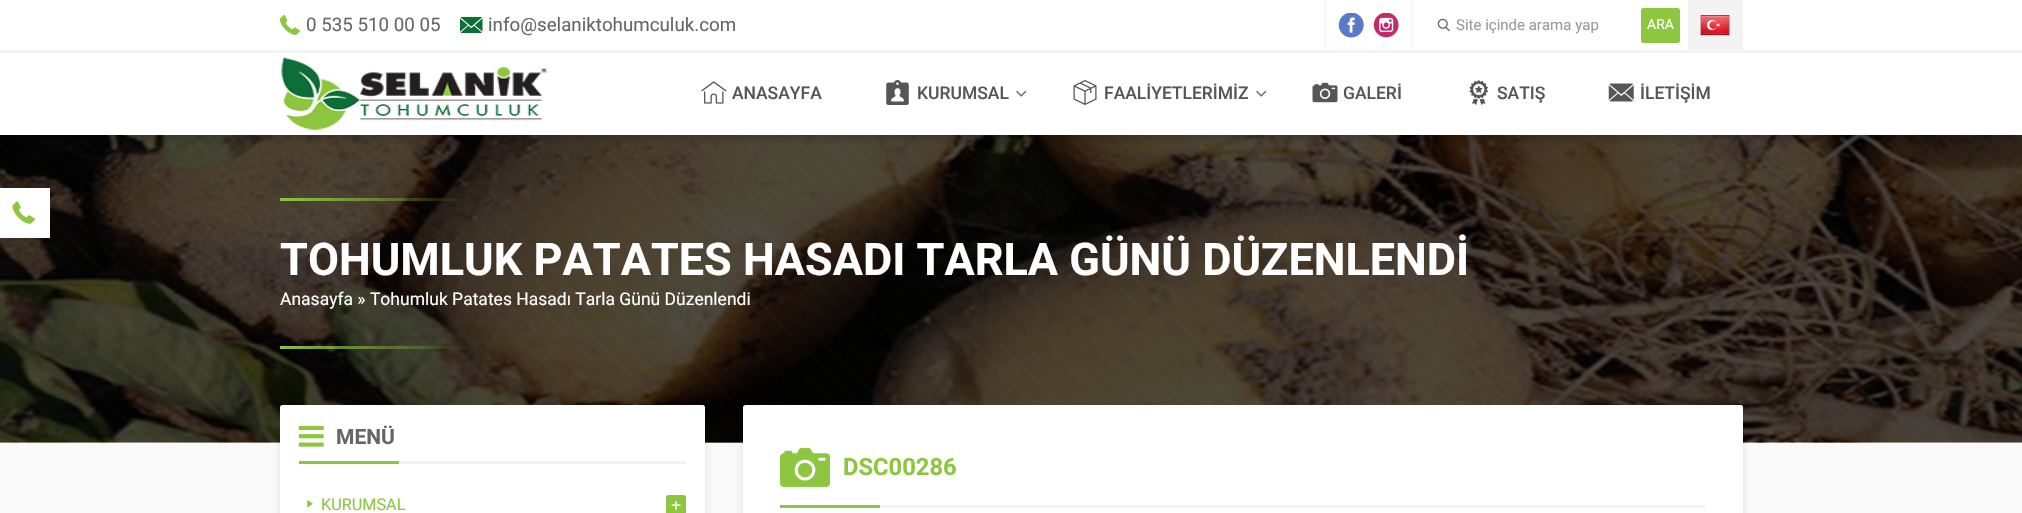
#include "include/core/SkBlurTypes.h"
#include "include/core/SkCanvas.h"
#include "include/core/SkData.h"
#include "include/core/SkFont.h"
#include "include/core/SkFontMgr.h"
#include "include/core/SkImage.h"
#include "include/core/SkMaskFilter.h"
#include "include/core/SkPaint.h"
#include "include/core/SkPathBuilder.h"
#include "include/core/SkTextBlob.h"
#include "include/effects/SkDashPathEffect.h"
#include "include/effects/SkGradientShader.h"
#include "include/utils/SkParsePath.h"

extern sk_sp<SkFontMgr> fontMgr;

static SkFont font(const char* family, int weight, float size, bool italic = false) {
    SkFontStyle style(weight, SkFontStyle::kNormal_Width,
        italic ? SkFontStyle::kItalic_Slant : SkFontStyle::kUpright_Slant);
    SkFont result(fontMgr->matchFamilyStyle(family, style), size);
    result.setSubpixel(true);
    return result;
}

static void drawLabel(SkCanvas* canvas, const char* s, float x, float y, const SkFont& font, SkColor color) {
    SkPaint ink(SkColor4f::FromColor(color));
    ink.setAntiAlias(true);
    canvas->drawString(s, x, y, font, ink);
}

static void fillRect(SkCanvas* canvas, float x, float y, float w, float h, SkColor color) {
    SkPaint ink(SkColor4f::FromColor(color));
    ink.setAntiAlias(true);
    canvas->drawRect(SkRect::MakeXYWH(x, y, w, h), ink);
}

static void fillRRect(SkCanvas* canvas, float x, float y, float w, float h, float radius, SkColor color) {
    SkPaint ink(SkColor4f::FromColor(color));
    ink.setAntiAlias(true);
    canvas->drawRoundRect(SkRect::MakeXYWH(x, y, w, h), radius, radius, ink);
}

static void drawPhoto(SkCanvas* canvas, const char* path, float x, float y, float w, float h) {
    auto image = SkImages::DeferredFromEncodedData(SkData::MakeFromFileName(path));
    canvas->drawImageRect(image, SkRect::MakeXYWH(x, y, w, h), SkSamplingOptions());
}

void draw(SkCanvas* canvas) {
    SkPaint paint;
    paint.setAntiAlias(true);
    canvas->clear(0xFFF9F9F9);
    fillRect(canvas, 0, 0, 2022, 135, 0xFFFFFFFF);
    fillRect(canvas, 0, 50, 2022, 3, 0xFFF3F3F3);
    drawPhoto(canvas, "assets/img1.png", 280, 15, 20, 20);
    SkFont font1 = font("Roboto", 400, 18.75f);
    drawLabel(canvas, "0 535 510 00 05", 306, 31, font1, 0xFF666666);
    drawPhoto(canvas, "assets/img2.png", 460, 16, 23, 18);
    drawLabel(canvas, "info@selaniktohumculuk.com", 488, 31, font1, 0xFF666666);
    fillRect(canvas, 1325, 0, 1, 50, 0xFFF3F3F3);
    drawPhoto(canvas, "assets/img3.png", 1338, 13, 26, 25);
    drawPhoto(canvas, "assets/img4.png", 1373, 13, 26, 25);
    fillRect(canvas, 1411, 0, 1, 50, 0xFFF3F3F3);
    drawPhoto(canvas, "assets/img5.png", 1437, 18, 13, 14);
    SkFont font2 = font("Roboto", 400, 15);
    drawLabel(canvas, "Site içinde arama yap", 1456, 30, font2, 0xFF999999);
    fillRRect(canvas, 1641, 8, 39, 35, 2.5f, 0xFF8DC63F);
    SkFont font3 = font("Roboto", 400, 14);
    drawLabel(canvas, "ARA", 1647, 29, font3, 0xFFFFFFFF);
    fillRect(canvas, 1688, 0, 55, 50, 0xFFF3F3F3);
    drawPhoto(canvas, "assets/img6.png", 1700, 15, 30, 21);
    drawPhoto(canvas, "assets/img16.png", 0, 135, 2022, 308);
    drawPhoto(canvas, "assets/img17.png", 0, 135, 2022, 308);
    canvas->save();
    canvas->clipRect(SkRect::MakeXYWH(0, 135, 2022, 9));
    paint.setColor(0x33000000);
    paint.setMaskFilter(SkMaskFilter::MakeBlur(kNormal_SkBlurStyle, 5));
    canvas->drawRect(SkRect::MakeXYWH(3, 60, 2017, 78), paint);
    paint.setMaskFilter(nullptr);
    canvas->restore();
    drawPhoto(canvas, "assets/img7.png", 281, 57, 267, 74);
    drawPhoto(canvas, "assets/img8.png", 701, 81, 26, 23);
    SkFont font4 = font("Roboto", 500, 17.5f);
    drawLabel(canvas, "ANASAYFA", 732, 99, font4, 0xFF565656);
    drawPhoto(canvas, "assets/img9.png", 886, 80, 23, 25);
    drawLabel(canvas, "KURUMSAL", 917, 99, font4, 0xFF565656);
    drawPhoto(canvas, "assets/img10.png", 1016, 91, 11, 6);
    drawPhoto(canvas, "assets/img11.png", 1073, 80, 24, 25);
    drawLabel(canvas, "FAALİYETLERİMİZ", 1104, 99, font4, 0xFF565656);
    drawPhoto(canvas, "assets/img10.png", 1256, 91, 11, 6);
    drawPhoto(canvas, "assets/img12.png", 1312, 82, 26, 21);
    drawLabel(canvas, "GALERİ", 1343, 99, font4, 0xFF565656);
    drawPhoto(canvas, "assets/img13.png", 1469, 80, 19, 25);
    drawLabel(canvas, "SATIŞ", 1497, 99, font4, 0xFF565656);
    drawPhoto(canvas, "assets/img14.png", 1608, 83, 26, 19);
    drawLabel(canvas, "İLETİŞİM", 1640, 99, font4, 0xFF565656);
    fillRect(canvas, 0, 188, 50, 50, 0xFFFFFFFF);
    drawPhoto(canvas, "assets/img15.png", 12, 201, 23, 23);
    {
        const SkColor colors[] = {0xFF8DC63F, 0x008DC63F};
        const float stops[] = {0, 1};
        const SkPoint ends[] = {{280, 199}, {468, 199}};
        paint.setShader(SkGradientShader::MakeLinear(ends, colors, stops, 2, SkTileMode::kClamp));
        paint.setAlpha(255);
    }
    canvas->drawRect(SkRect::MakeXYWH(280, 198, 188, 3), paint);
    SkFont font5 = font("Roboto", 700, 45);
    drawLabel(canvas, "TOHUMLUK PATATES HASADI TARLA GÜNÜ DÜZENLENDİ", 280, 275, font5, 0xFFFFFFFF);
    SkFont font6 = font("Roboto", 400, 17.5f);
    drawLabel(canvas, "Anasayfa » Tohumluk Patates Hasadı Tarla Günü Düzenlendi", 280, 305, font6, 0xFFFFFFFF);
    {
        const SkColor colors[] = {0xFF8DC63F, 0x008DC63F};
        const float stops[] = {0, 1};
        const SkPoint ends[] = {{280, 348}, {468, 348}};
        paint.setShader(SkGradientShader::MakeLinear(ends, colors, stops, 2, SkTileMode::kClamp));
        paint.setAlpha(255);
    }
    canvas->drawRect(SkRect::MakeXYWH(280, 346, 188, 3), paint);
    canvas->save();
    canvas->clipRect(SkRect::MakeXYWH(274, 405, 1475, 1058));
    paint.setShader(nullptr);
    paint.setColor(0x1A000000);
    paint.setMaskFilter(SkMaskFilter::MakeBlur(kNormal_SkBlurStyle, 3));
    canvas->drawRoundRect(SkRect::MakeXYWH(280, 405, 425, 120), 2.5f, 2.5f, paint);
    paint.setMaskFilter(nullptr);
    canvas->restore();
    fillRRect(canvas, 280, 405, 425, 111, 2.5f, 0xFFFFFFFF);
    drawPhoto(canvas, "assets/img18.png", 298, 425, 26, 22);
    SkFont font7 = font("Roboto", 700, 21);
    drawLabel(canvas, "MENÜ", 336, 444, font7, 0xFF666666);
    fillRect(canvas, 299, 461, 100, 3, 0xFF8DC63F);
    fillRect(canvas, 399, 461, 287, 3, 0xFFF2F2F2);
    drawPhoto(canvas, "assets/img19.png", 307, 500, 6, 8);
    SkFont font8 = font("Roboto", 400, 16.25f);
    drawLabel(canvas, "KURUMSAL", 321, 510, font8, 0xFF8DC63F);
    fillRRect(canvas, 666, 495, 20, 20, 2.5f, 0xFF8DC63F);
    SkFont font9 = font("Liberation Sans", 400, 17.5f);
    drawLabel(canvas, "+", 671, 511, font9, 0xFFFFFFFF);
    canvas->save();
    canvas->clipRect(SkRect::MakeXYWH(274, 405, 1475, 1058));
    paint.setMaskFilter(SkMaskFilter::MakeBlur(kNormal_SkBlurStyle, 3));
    canvas->drawRoundRect(SkRect::MakeXYWH(743, 405, 1000, 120), 2.5f, 2.5f, paint);
    paint.setMaskFilter(nullptr);
    canvas->restore();
    fillRRect(canvas, 743, 405, 1000, 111, 2.5f, 0xFFFFFFFF);
    drawPhoto(canvas, "assets/img20.png", 780, 448, 50, 39);
    SkFont font10 = font("Roboto", 700, 23.75f);
    drawLabel(canvas, "DSC00286", 843, 475, font10, 0xFF8DC63F);
    fillRect(canvas, 780, 505, 100, 3, 0xFF8DC63F);
    fillRect(canvas, 880, 505, 825, 3, 0xFFF2F2F2);
}
